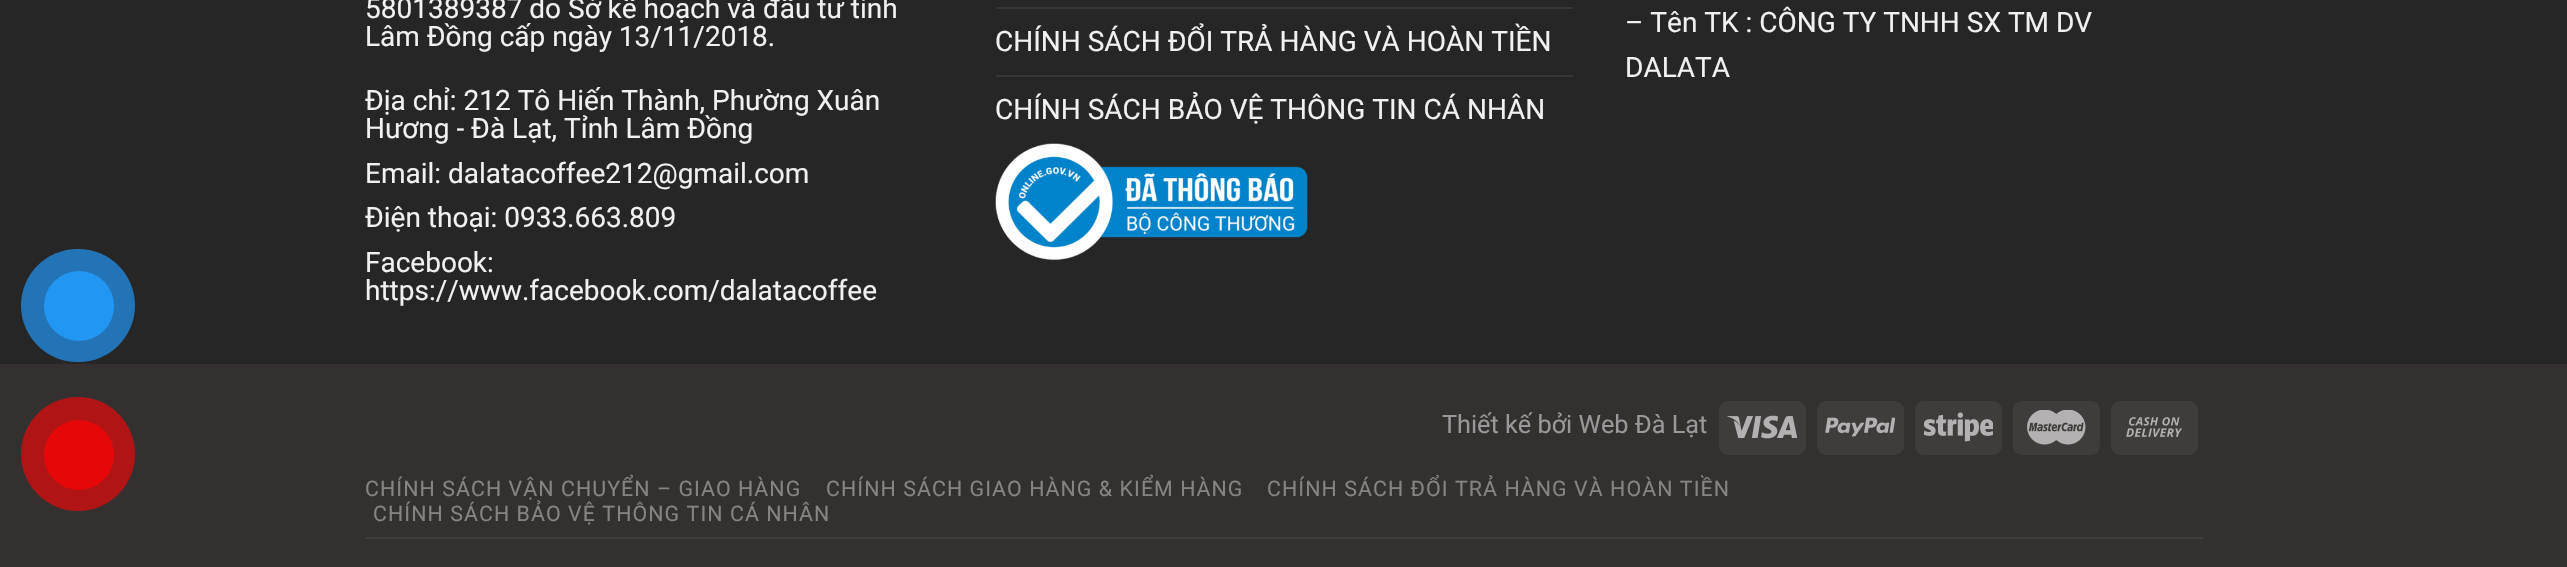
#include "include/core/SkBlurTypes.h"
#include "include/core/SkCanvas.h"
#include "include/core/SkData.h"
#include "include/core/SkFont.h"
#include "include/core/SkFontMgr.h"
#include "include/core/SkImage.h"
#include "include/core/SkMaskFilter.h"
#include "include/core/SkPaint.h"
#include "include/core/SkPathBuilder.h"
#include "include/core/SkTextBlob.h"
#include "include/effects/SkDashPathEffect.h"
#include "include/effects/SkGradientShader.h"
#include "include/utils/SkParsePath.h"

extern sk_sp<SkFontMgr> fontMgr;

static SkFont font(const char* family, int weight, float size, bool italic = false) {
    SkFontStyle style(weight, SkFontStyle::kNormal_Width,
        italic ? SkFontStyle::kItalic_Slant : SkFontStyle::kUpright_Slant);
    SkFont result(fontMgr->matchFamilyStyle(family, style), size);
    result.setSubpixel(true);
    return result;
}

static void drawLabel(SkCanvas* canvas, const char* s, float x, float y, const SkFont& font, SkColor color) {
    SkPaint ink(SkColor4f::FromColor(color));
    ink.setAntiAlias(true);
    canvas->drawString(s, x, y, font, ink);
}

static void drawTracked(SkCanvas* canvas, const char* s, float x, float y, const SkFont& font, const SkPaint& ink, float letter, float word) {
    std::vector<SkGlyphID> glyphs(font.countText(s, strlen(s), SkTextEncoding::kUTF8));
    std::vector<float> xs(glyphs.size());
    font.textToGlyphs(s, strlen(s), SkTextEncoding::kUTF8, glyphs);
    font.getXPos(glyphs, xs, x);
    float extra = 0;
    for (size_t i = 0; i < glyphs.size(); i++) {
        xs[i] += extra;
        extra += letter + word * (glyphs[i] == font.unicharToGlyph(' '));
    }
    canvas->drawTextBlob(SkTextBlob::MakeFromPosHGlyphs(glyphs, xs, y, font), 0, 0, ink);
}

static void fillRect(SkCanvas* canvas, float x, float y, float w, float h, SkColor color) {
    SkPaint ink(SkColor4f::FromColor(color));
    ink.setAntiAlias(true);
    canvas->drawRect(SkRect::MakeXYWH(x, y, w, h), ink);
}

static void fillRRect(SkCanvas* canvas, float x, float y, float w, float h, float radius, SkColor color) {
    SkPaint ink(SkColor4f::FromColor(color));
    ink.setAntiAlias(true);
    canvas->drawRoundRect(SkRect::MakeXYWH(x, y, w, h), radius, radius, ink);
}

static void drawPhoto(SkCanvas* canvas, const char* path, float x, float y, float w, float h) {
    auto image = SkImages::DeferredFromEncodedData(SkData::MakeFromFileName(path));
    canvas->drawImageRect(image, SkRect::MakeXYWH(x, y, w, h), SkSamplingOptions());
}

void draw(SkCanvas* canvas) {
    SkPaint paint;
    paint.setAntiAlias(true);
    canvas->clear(0xFF262626);
    fillRRect(canvas, 21, 249, 114, 113, 56.5f, 0xFF2374B6);
    paint.setColor(0xFF2196F3);
    canvas->drawCircle(79, 306, 35, paint);
    fillRect(canvas, 0, 364, 2567, 203, 0xFF353030);
    paint.setColor(0xFFB11414);
    canvas->drawCircle(78, 454, 57, paint);
    paint.setColor(0xFFE60808);
    canvas->drawCircle(79, 455, 35, paint);
    SkFont font1 = font("Roboto", 400, 28);
    drawLabel(canvas, "5801389387 do Sở kế hoạch và đầu tư tỉnh", 365, 18, font1, 0xFFF1F1F1);
    drawLabel(canvas, "Lâm Đồng cấp ngày 13/11/2018.", 365, 46, font1, 0xFFF1F1F1);
    drawLabel(canvas, "Địa chỉ: 212 Tô Hiến Thành, Phường Xuân", 365, 110, font1, 0xFFF1F1F1);
    drawLabel(canvas, "Hương - Đà Lạt, Tỉnh Lâm Đồng", 365, 138, font1, 0xFFF1F1F1);
    drawLabel(canvas, "Email: dalatacoffee212@gmail.com", 365, 183, font1, 0xFFF1F1F1);
    drawLabel(canvas, "Điện thoại: 0933.663.809", 365, 227, font1, 0xFFF1F1F1);
    drawLabel(canvas, "Facebook:", 365, 272, font1, 0xFFF1F1F1);
    drawLabel(canvas, "https://www.facebook.com/dalatacoffee", 365, 300, font1, 0xFFF1F1F1);
    fillRect(canvas, 996, 7, 577, 2, 0xFF373737);
    drawLabel(canvas, "CHÍNH SÁCH ĐỔI TRẢ HÀNG VÀ HOÀN TIỀN", 995, 51, font1, 0xFFF1F1F1);
    fillRect(canvas, 996, 75, 577, 2, 0xFF373737);
    drawLabel(canvas, "CHÍNH SÁCH BẢO VỆ THÔNG TIN CÁ NHÂN", 995, 119, font1, 0xFFF1F1F1);
    drawPhoto(canvas, "assets/img1.png", 995, 143, 313, 118);
    drawLabel(canvas, "– Tên TK : CÔNG TY TNHH SX TM DV", 1625, 32, font1, 0xFFF1F1F1);
    drawLabel(canvas, "DALATA", 1625, 77, font1, 0xFFF1F1F1);
    SkFont font2 = font("Roboto", 400, 25.25f);
    drawLabel(canvas, "Thiết kế bởi Web Đà Lạt", 1442, 433, font2, 0xFF9A9898);
    fillRRect(canvas, 1719, 401, 87, 54, 9, 0xFF413C3C);
    drawPhoto(canvas, "assets/img2.png", 1727, 415, 70, 24);
    fillRRect(canvas, 1817, 401, 87, 54, 9, 0xFF413C3C);
    drawPhoto(canvas, "assets/img3.png", 1825, 417, 70, 20);
    fillRRect(canvas, 1915, 401, 87, 54, 9, 0xFF413C3C);
    drawPhoto(canvas, "assets/img4.png", 1923, 412, 70, 30);
    fillRRect(canvas, 2013, 401, 87, 54, 9, 0xFF413C3C);
    drawPhoto(canvas, "assets/img5.png", 2027, 410, 59, 35);
    fillRRect(canvas, 2111, 401, 87, 54, 9, 0xFF413C3C);
    drawPhoto(canvas, "assets/img6.png", 2126, 417, 57, 20);
    fillRect(canvas, 366, 537, 1837, 2, 0xFF423D3D);
    SkFont font3 = font("Roboto", 400, 21.4f);
    paint.setColor(0xFF868383);
    drawTracked(canvas, "CHÍNH SÁCH VẬN CHUYỂN – GIAO HÀNG", 365, 496, font3, paint, 1.05f, 0);
    drawTracked(canvas, "CHÍNH SÁCH GIAO HÀNG & KIỂM HÀNG", 826, 496, font3, paint, 1.05f, 0);
    drawTracked(canvas, "CHÍNH SÁCH ĐỔI TRẢ HÀNG VÀ HOÀN TIỀN", 1267, 496, font3, paint, 1.05f, 0);
    drawTracked(canvas, "CHÍNH SÁCH BẢO VỆ THÔNG TIN CÁ NHÂN", 373, 521, font3, paint, 1.05f, 0);
}
